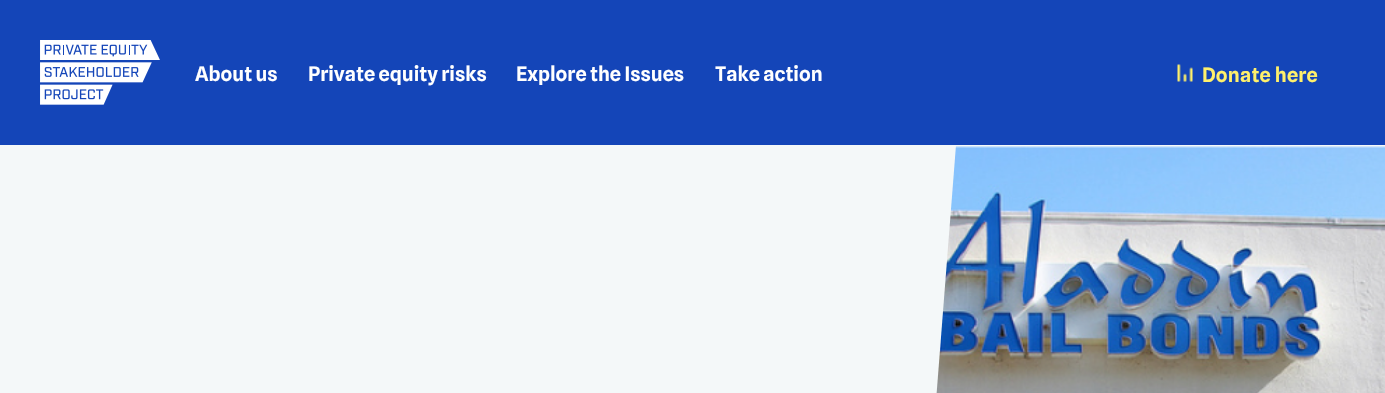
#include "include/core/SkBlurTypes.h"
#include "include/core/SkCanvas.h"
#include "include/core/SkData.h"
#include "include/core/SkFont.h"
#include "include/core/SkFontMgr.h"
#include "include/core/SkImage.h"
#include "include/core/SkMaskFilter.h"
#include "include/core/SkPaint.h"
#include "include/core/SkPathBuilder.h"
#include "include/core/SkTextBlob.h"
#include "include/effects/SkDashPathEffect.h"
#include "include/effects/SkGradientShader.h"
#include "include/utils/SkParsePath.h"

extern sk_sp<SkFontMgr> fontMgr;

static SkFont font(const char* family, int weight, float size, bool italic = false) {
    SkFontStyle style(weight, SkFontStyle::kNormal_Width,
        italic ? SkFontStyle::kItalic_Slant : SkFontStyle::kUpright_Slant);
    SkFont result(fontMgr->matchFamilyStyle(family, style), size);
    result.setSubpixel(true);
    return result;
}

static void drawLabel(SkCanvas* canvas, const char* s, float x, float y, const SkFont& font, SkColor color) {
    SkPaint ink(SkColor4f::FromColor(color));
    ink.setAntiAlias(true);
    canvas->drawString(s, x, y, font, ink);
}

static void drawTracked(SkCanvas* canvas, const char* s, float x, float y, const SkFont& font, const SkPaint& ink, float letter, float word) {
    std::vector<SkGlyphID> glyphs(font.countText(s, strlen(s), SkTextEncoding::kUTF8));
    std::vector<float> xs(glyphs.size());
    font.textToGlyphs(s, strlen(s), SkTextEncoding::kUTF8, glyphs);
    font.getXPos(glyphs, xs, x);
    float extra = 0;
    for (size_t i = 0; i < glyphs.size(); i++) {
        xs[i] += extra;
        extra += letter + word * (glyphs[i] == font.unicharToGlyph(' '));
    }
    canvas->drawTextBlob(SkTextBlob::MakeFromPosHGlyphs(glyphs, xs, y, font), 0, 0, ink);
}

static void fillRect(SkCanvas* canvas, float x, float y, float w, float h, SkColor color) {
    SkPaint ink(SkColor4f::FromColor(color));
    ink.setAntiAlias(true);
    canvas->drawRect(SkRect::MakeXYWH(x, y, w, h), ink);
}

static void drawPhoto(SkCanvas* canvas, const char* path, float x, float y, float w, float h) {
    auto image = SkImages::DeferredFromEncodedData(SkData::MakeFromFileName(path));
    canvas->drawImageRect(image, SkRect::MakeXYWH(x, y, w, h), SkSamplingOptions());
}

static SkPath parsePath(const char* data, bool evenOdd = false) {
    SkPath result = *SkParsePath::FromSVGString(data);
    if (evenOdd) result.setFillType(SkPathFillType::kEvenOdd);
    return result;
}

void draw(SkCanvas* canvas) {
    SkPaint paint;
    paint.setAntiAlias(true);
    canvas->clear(0xFFF4F8F9);
    fillRect(canvas, 0, 0, 1385, 145, 0xFF1445B8);
    drawPhoto(canvas, "assets/img1.png", 40, 40, 120, 65);
    SkFont font1 = font("Spline Sans", 600, 20);
    drawLabel(canvas, "About us", 195, 81, font1, 0xFFFFFFFF);
    drawLabel(canvas, "Private equity risks", 308, 81, font1, 0xFFFFFFFF);
    drawLabel(canvas, "Explore the Issues", 516, 81, font1, 0xFFFFFFFF);
    drawLabel(canvas, "Take action", 715, 81, font1, 0xFFFFFFFF);
    drawPhoto(canvas, "assets/img2.png", 1177, 64, 16, 18);
    paint.setColor(0xFFFFF06B);
    drawTracked(canvas, "Donate here", 1202, 82, font1, paint, 0.25f, 0);
    drawPhoto(canvas, "assets/img3.png", 936, 146, 449, 247);
    paint.setColor(0xFFF4F8F9);
    canvas->drawPath(parsePath("M831 145H956L831 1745Z"), paint);
}
